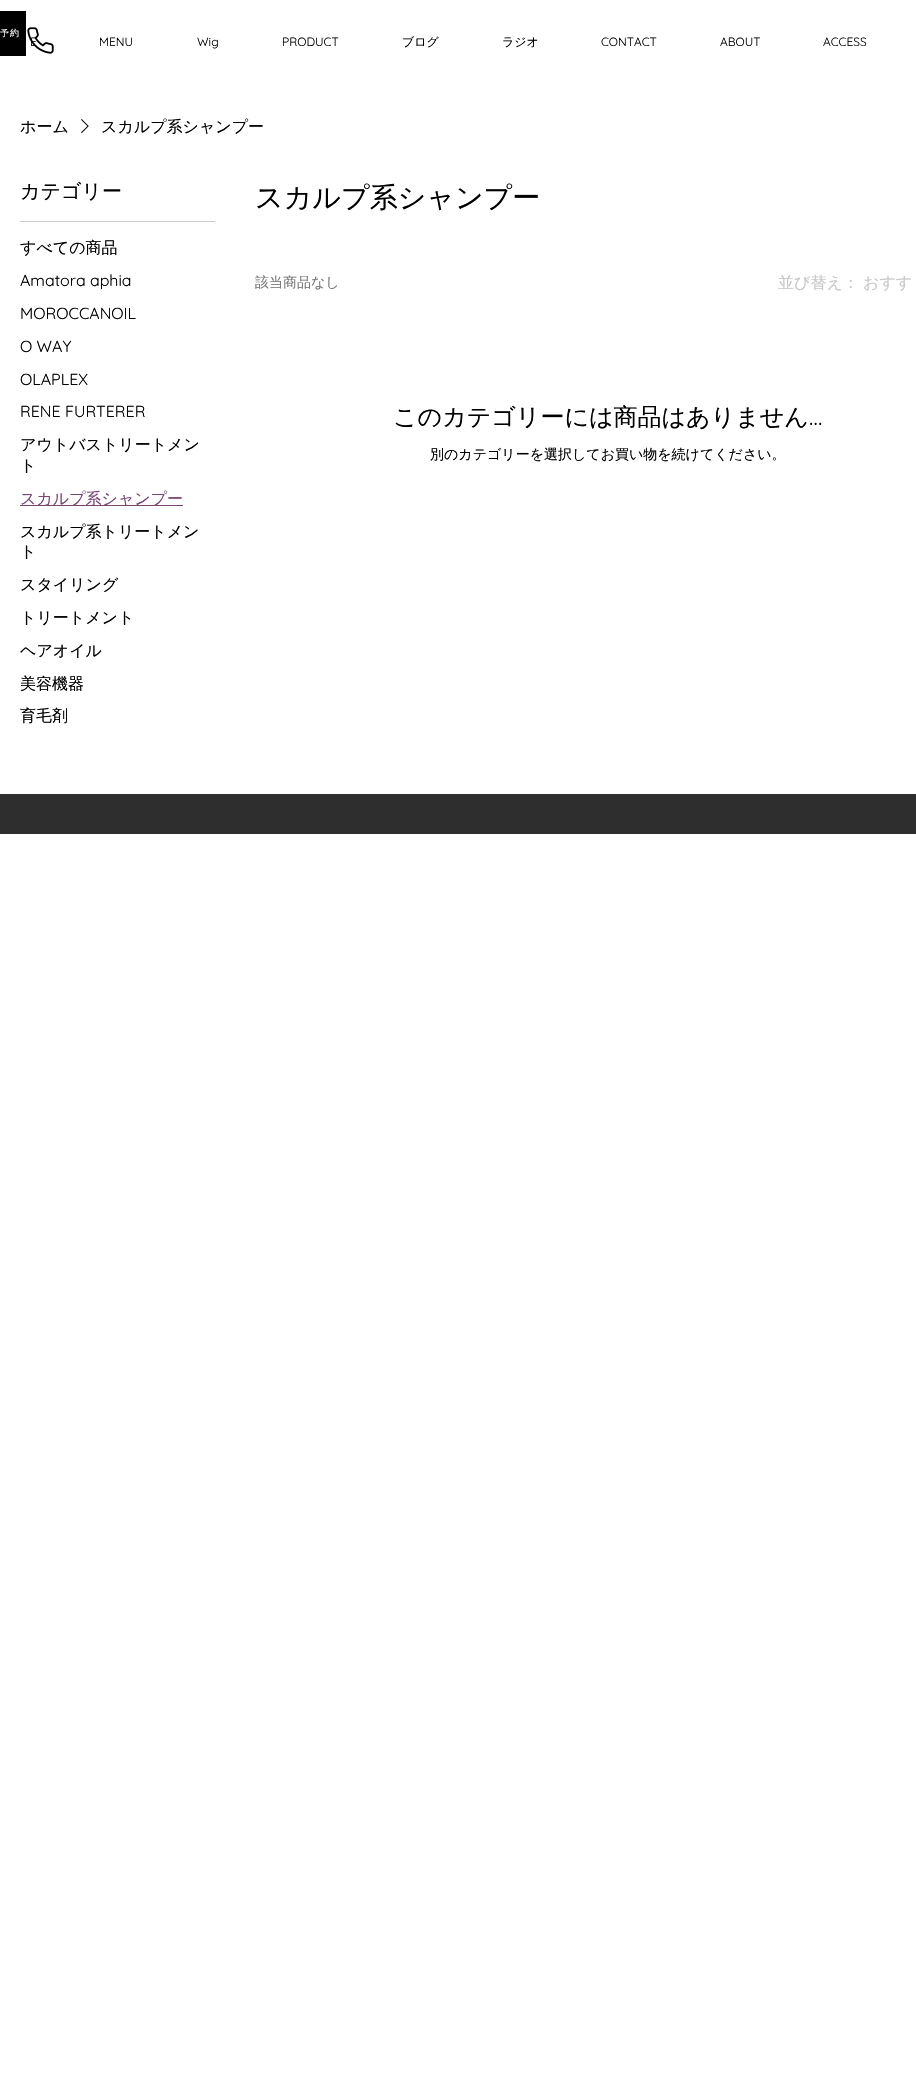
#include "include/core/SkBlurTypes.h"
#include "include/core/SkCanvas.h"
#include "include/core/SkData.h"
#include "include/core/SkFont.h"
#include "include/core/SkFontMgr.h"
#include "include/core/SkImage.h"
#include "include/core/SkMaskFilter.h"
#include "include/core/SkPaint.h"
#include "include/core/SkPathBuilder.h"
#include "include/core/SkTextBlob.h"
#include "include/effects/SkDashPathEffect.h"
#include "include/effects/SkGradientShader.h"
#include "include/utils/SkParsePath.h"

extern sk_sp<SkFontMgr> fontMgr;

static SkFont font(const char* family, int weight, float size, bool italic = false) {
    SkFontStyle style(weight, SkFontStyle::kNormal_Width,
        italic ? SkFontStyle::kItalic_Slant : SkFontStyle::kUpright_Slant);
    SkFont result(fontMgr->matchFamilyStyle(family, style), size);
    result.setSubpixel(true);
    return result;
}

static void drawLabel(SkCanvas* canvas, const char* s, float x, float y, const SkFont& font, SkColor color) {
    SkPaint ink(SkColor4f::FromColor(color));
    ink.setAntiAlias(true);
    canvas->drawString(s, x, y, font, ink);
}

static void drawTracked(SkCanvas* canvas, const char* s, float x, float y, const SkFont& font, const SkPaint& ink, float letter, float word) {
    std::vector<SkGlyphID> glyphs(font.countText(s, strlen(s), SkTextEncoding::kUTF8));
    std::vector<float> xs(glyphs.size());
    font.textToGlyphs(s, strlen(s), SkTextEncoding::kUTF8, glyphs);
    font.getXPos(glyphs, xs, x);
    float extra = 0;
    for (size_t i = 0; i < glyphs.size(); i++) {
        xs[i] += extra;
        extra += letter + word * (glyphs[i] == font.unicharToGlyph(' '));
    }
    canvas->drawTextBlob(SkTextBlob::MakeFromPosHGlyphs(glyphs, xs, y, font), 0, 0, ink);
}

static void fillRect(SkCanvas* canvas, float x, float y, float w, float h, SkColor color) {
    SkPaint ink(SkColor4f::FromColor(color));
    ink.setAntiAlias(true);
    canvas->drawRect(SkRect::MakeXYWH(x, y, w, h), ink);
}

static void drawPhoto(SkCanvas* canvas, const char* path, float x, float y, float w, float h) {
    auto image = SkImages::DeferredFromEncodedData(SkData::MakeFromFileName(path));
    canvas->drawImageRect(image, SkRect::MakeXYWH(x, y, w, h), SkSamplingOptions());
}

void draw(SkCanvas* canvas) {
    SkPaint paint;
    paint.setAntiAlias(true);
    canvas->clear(0xFFFFFFFF);
    fillRect(canvas, 0, 11, 26, 45, 0xFF000000);
    SkFont font1 = font("WenQuanYi Zen Hei", 500, 9);
    paint.setColor(0xFFFFFFFF);
    drawTracked(canvas, "予約", 0, 36, font1, paint, 1, 0);
    SkFont font2 = font("Quicksand", 400, 12);
    drawLabel(canvas, "E", 30, 46, font2, 0xFF000000);
    drawPhoto(canvas, "assets/img1.png", 27, 27, 27, 27);
    drawLabel(canvas, "MENU", 99, 46, font2, 0xFF000000);
    drawLabel(canvas, "Wig", 197, 46, font2, 0xFF000000);
    drawLabel(canvas, "PRODUCT", 282, 46, font2, 0xFF000000);
    SkFont font3 = font("WenQuanYi Zen Hei", 500, 12);
    drawLabel(canvas, "ブログ", 402, 46, font3, 0xFF000000);
    drawLabel(canvas, "ラジオ", 502, 46, font3, 0xFF000000);
    drawLabel(canvas, "CONTACT", 601, 46, font2, 0xFF000000);
    drawLabel(canvas, "ABOUT", 720, 46, font2, 0xFF000000);
    drawLabel(canvas, "ACCESS", 823, 46, font2, 0xFF000000);
    SkFont font4 = font("WenQuanYi Zen Hei", 500, 16);
    drawLabel(canvas, "ホーム", 20, 132, font4, 0xFF000000);
    drawPhoto(canvas, "assets/img2.png", 81, 119, 8, 14);
    drawLabel(canvas, "スカルプ系シャンプー", 101, 132, font4, 0xFF000000);
    fillRect(canvas, 20, 221, 195, 1, 0xFFCCCCCC);
    SkFont font5 = font("WenQuanYi Zen Hei", 500, 20);
    drawLabel(canvas, "カテゴリー", 20, 198, font5, 0xFF000000);
    drawLabel(canvas, "すべての商品", 20, 253, font4, 0xFF000000);
    SkFont font6 = font("Quicksand", 400, 16);
    drawLabel(canvas, "Amatora aphia", 20, 286, font6, 0xFF000000);
    drawLabel(canvas, "MOROCCANOIL", 20, 319, font6, 0xFF000000);
    drawLabel(canvas, "O WAY", 20, 352, font6, 0xFF000000);
    drawLabel(canvas, "OLAPLEX", 20, 385, font6, 0xFF000000);
    drawLabel(canvas, "RENE FURTERER", 20, 417, font6, 0xFF000000);
    drawLabel(canvas, "アウトバストリートメン", 20, 450, font4, 0xFF000000);
    drawLabel(canvas, "ト", 20, 471, font4, 0xFF000000);
    fillRect(canvas, 20, 505, 163, 1, 0xFF794577);
    drawLabel(canvas, "スカルプ系シャンプー", 20, 504, font4, 0xFF794577);
    drawLabel(canvas, "スカルプ系トリートメン", 20, 537, font4, 0xFF000000);
    drawLabel(canvas, "ト", 20, 557, font4, 0xFF000000);
    drawLabel(canvas, "スタイリング", 20, 590, font4, 0xFF000000);
    drawLabel(canvas, "トリートメント", 20, 623, font4, 0xFF000000);
    drawLabel(canvas, "ヘアオイル", 20, 656, font4, 0xFF000000);
    drawLabel(canvas, "美容機器", 20, 689, font4, 0xFF000000);
    drawLabel(canvas, "育毛剤", 20, 721, font4, 0xFF000000);
    SkFont font7 = font("WenQuanYi Zen Hei", 500, 28);
    drawLabel(canvas, "スカルプ系シャンプー", 255, 207, font7, 0xFF000000);
    SkFont font8 = font("WenQuanYi Zen Hei", 500, 14);
    drawLabel(canvas, "該当商品なし", 255, 287, font8, 0xFF757575);
    drawLabel(canvas, "並び替え：", 778, 288, font4, 0xFFC7C7C7);
    drawLabel(canvas, "おすす", 863, 288, font4, 0xFFC7C7C7);
    SkFont font9 = font("WenQuanYi Zen Hei", 500, 24);
    drawLabel(canvas, "このカテゴリーには商品はありません", 393, 425, font9, 0xFF000000);
    SkFont font10 = font("Quicksand", 400, 24);
    drawLabel(canvas, "…", 809, 425, font10, 0xFF000000);
    drawLabel(canvas, "別のカテゴリーを選択してお買い物を続けてください。", 430, 459, font8, 0xFF000000);
    fillRect(canvas, 0, 794, 916, 40, 0xFF2F2E2E);
}
